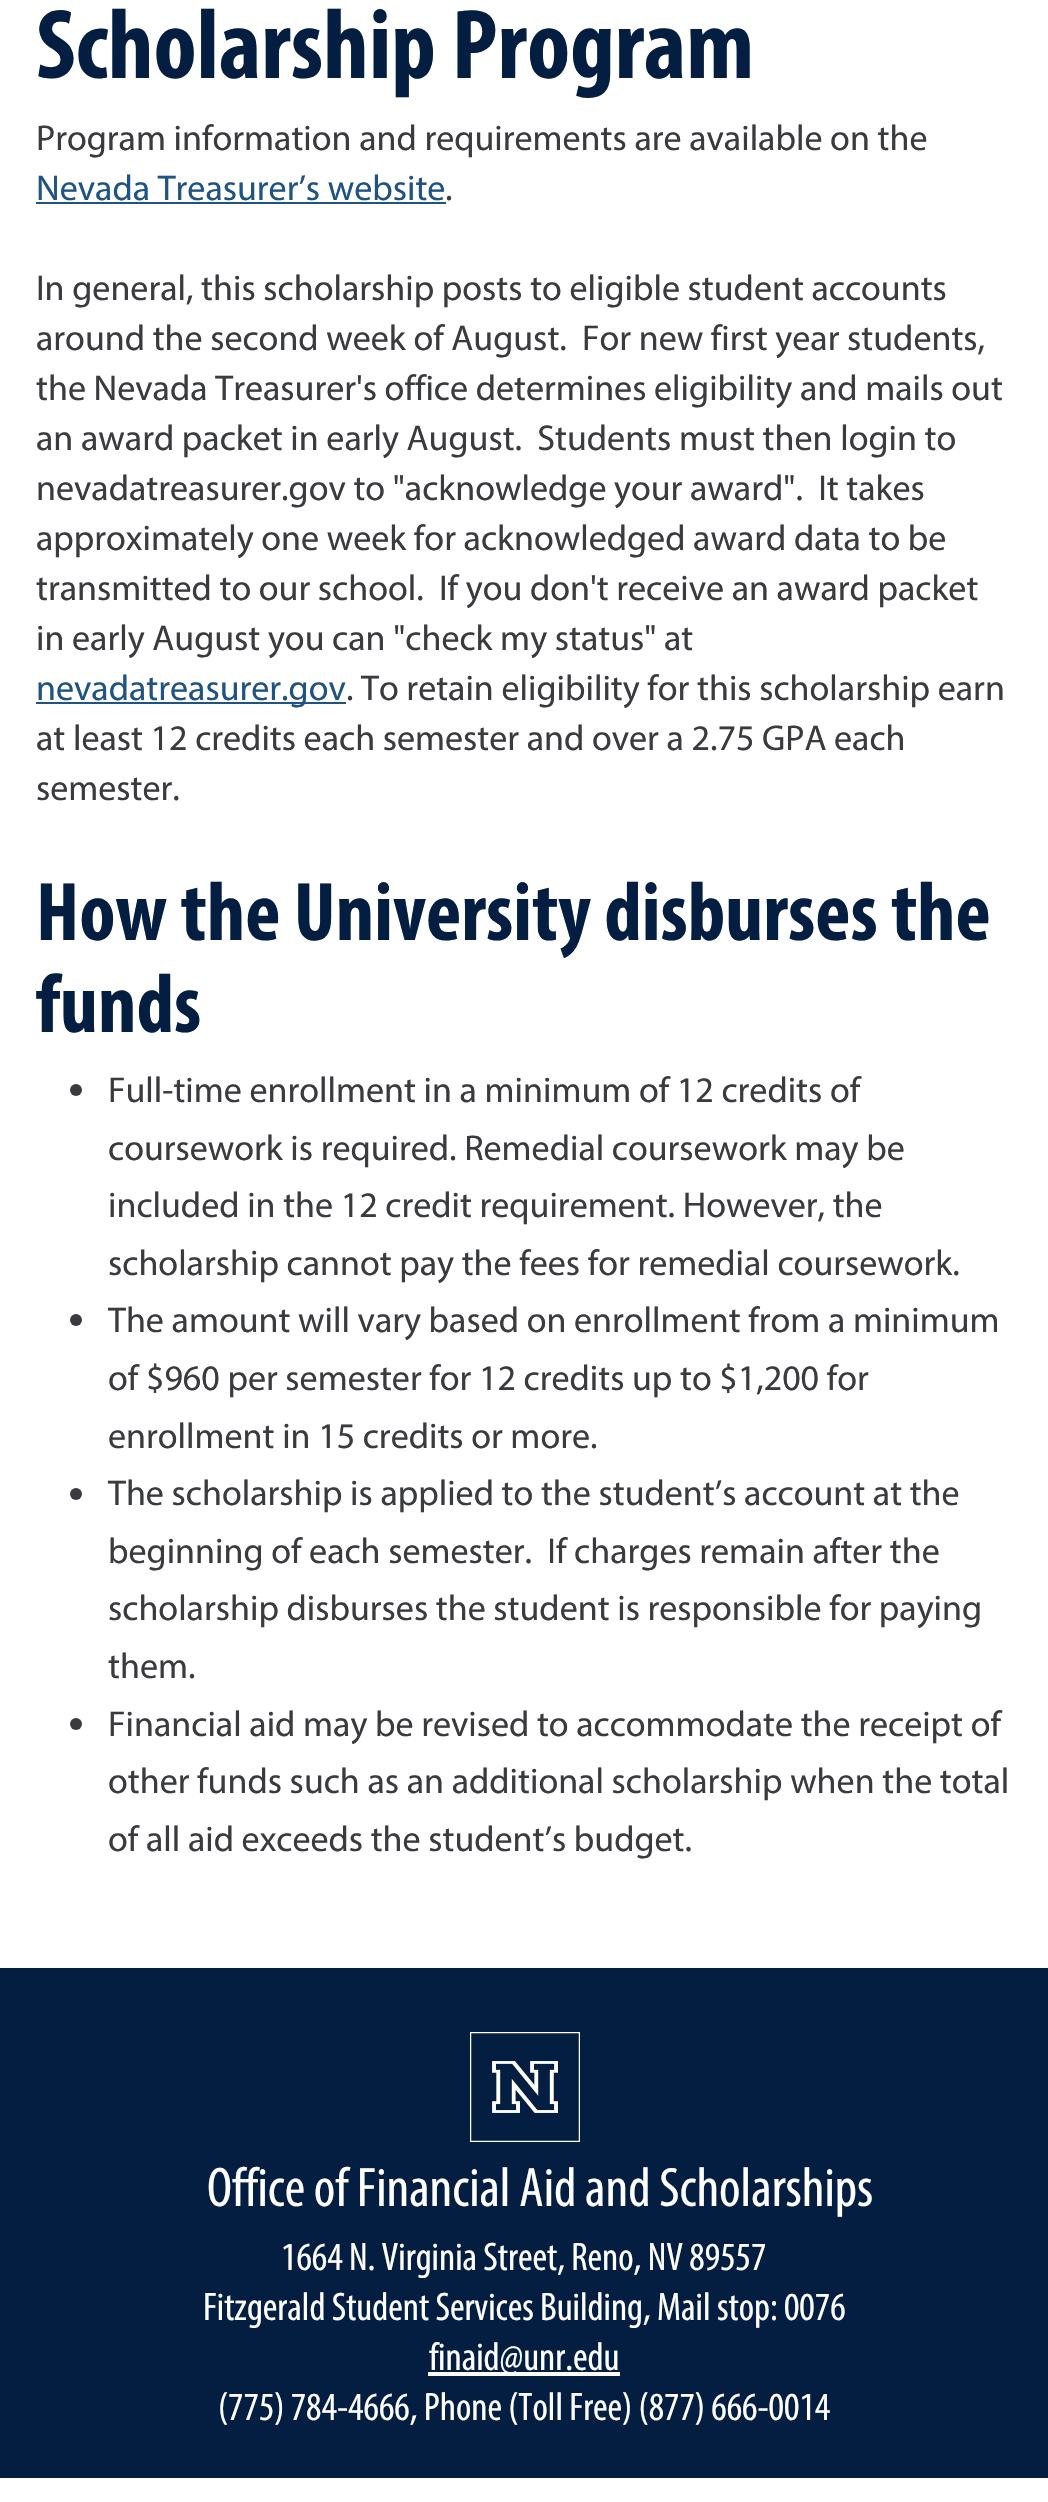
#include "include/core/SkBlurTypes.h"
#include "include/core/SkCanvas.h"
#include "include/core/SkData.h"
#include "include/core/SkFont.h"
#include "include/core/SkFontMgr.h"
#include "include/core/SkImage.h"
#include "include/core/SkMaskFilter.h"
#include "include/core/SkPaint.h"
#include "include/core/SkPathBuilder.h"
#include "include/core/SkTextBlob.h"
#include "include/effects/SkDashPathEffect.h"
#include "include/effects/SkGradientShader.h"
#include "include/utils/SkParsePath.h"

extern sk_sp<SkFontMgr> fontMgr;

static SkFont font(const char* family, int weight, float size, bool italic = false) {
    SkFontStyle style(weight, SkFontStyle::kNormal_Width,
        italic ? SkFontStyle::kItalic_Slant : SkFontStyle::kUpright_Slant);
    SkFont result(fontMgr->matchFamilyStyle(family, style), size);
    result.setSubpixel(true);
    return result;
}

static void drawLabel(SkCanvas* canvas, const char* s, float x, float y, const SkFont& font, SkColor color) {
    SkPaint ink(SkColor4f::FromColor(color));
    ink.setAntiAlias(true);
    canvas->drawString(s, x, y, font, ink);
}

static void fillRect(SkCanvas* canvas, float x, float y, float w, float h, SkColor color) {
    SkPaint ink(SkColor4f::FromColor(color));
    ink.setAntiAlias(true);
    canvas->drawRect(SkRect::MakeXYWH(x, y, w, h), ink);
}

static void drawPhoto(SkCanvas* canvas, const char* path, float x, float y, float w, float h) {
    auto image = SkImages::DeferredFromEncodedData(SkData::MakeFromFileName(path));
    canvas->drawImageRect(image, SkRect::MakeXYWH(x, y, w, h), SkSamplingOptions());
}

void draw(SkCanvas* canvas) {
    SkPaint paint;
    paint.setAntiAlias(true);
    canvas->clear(0xFFFFFFFF);
    SkFont font1 = font("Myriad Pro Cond", 700, 100);
    drawLabel(canvas, "Scholarship Program", 36, 78, font1, 0xFF041E42);
    SkFont font2 = font("Myriad", 400, 36);
    drawLabel(canvas, "Program information and requirements are available on the", 36, 150, font2, 0xFF3A3B3E);
    drawLabel(canvas, "Nevada Treasurer’s website", 36, 200, font2, 0xFF1F5383);
    fillRect(canvas, 36, 202, 410, 2, 0xFF1F5383);
    drawLabel(canvas, ".", 445, 200, font2, 0xFF3A3B3E);
    drawLabel(canvas, "In general, this scholarship posts to eligible student accounts", 36, 300, font2, 0xFF3A3B3E);
    drawLabel(canvas, "around the second week of August.  For new first year students,", 36, 350, font2, 0xFF3A3B3E);
    drawLabel(canvas, "the Nevada Treasurer's office determines eligibility and mails out", 36, 400, font2, 0xFF3A3B3E);
    drawLabel(canvas, "an award packet in early August.  Students must then login to", 36, 450, font2, 0xFF3A3B3E);
    drawLabel(canvas, "nevadatreasurer.gov to \"acknowledge your award\".  It takes", 36, 500, font2, 0xFF3A3B3E);
    drawLabel(canvas, "approximately one week for acknowledged award data to be", 36, 550, font2, 0xFF3A3B3E);
    drawLabel(canvas, "transmitted to our school.  If you don't receive an award packet", 36, 600, font2, 0xFF3A3B3E);
    drawLabel(canvas, "in early August you can \"check my status\" at", 36, 650, font2, 0xFF3A3B3E);
    fillRect(canvas, 36, 702, 310, 2, 0xFF1F5383);
    drawLabel(canvas, "nevadatreasurer.gov", 36, 700, font2, 0xFF1F5383);
    drawLabel(canvas, ". To retain eligibility for this scholarship earn", 346, 700, font2, 0xFF3A3B3E);
    drawLabel(canvas, "at least 12 credits each semester and over a 2.75 GPA each", 36, 750, font2, 0xFF3A3B3E);
    drawLabel(canvas, "semester.", 36, 800, font2, 0xFF3A3B3E);
    SkFont font3 = font("Myriad Pro Cond", 700, 84);
    drawLabel(canvas, "How the University disburses the", 36, 940, font3, 0xFF041E42);
    drawLabel(canvas, "funds", 36, 1032, font3, 0xFF041E42);
    paint.setColor(0xFF3A3B3E);
    canvas->drawCircle(76, 1090, 6, paint);
    drawLabel(canvas, "Full-time enrollment in a minimum of 12 credits of", 108, 1102, font2, 0xFF3A3B3E);
    drawLabel(canvas, "coursework is required. Remedial coursework may be", 108, 1160, font2, 0xFF3A3B3E);
    drawLabel(canvas, "included in the 12 credit requirement. However, the", 108, 1217, font2, 0xFF3A3B3E);
    drawLabel(canvas, "scholarship cannot pay the fees for remedial coursework.", 108, 1275, font2, 0xFF3A3B3E);
    canvas->drawCircle(76, 1320, 6, paint);
    drawLabel(canvas, "The amount will vary based on enrollment from a minimum", 108, 1332, font2, 0xFF3A3B3E);
    drawLabel(canvas, "of $960 per semester for 12 credits up to $1,200 for", 108, 1390, font2, 0xFF3A3B3E);
    drawLabel(canvas, "enrollment in 15 credits or more.", 108, 1448, font2, 0xFF3A3B3E);
    canvas->drawCircle(76, 1494, 6, paint);
    drawLabel(canvas, "The scholarship is applied to the student’s account at the", 108, 1505, font2, 0xFF3A3B3E);
    drawLabel(canvas, "beginning of each semester.  If charges remain after the", 108, 1563, font2, 0xFF3A3B3E);
    drawLabel(canvas, "scholarship disburses the student is responsible for paying", 108, 1620, font2, 0xFF3A3B3E);
    drawLabel(canvas, "them.", 108, 1678, font2, 0xFF3A3B3E);
    canvas->drawCircle(76, 1724, 6, paint);
    drawLabel(canvas, "Financial aid may be revised to accommodate the receipt of", 108, 1736, font2, 0xFF3A3B3E);
    drawLabel(canvas, "other funds such as an additional scholarship when the total", 108, 1793, font2, 0xFF3A3B3E);
    drawLabel(canvas, "of all aid exceeds the student’s budget.", 108, 1851, font2, 0xFF3A3B3E);
    fillRect(canvas, 0, 1968, 1048, 510, 0xFF041E42);
    drawPhoto(canvas, "assets/img1.png", 470, 2032, 110, 110);
    SkFont font4 = font("Myriad Pro Cond", 400, 56);
    drawLabel(canvas, "Office of Financial Aid and Scholarships", 207, 2206, font4, 0xFFFFFFFF);
    SkFont font5 = font("Myriad Pro Cond", 400, 40);
    drawLabel(canvas, "1664 N. Virginia Street, Reno, NV 89557", 281, 2270, font5, 0xFFFFFFFF);
    drawLabel(canvas, "Fitzgerald Student Services Building, Mail stop: 0076", 203, 2320, font5, 0xFFFFFFFF);
    fillRect(canvas, 428, 2372, 192, 4, 0xFFFFFFFF);
    drawLabel(canvas, "finaid@unr.edu", 429, 2370, font5, 0xFFFFFFFF);
    drawLabel(canvas, "(775) 784-4666, Phone (Toll Free) (877) 666-0014", 218, 2420, font5, 0xFFFFFFFF);
}
